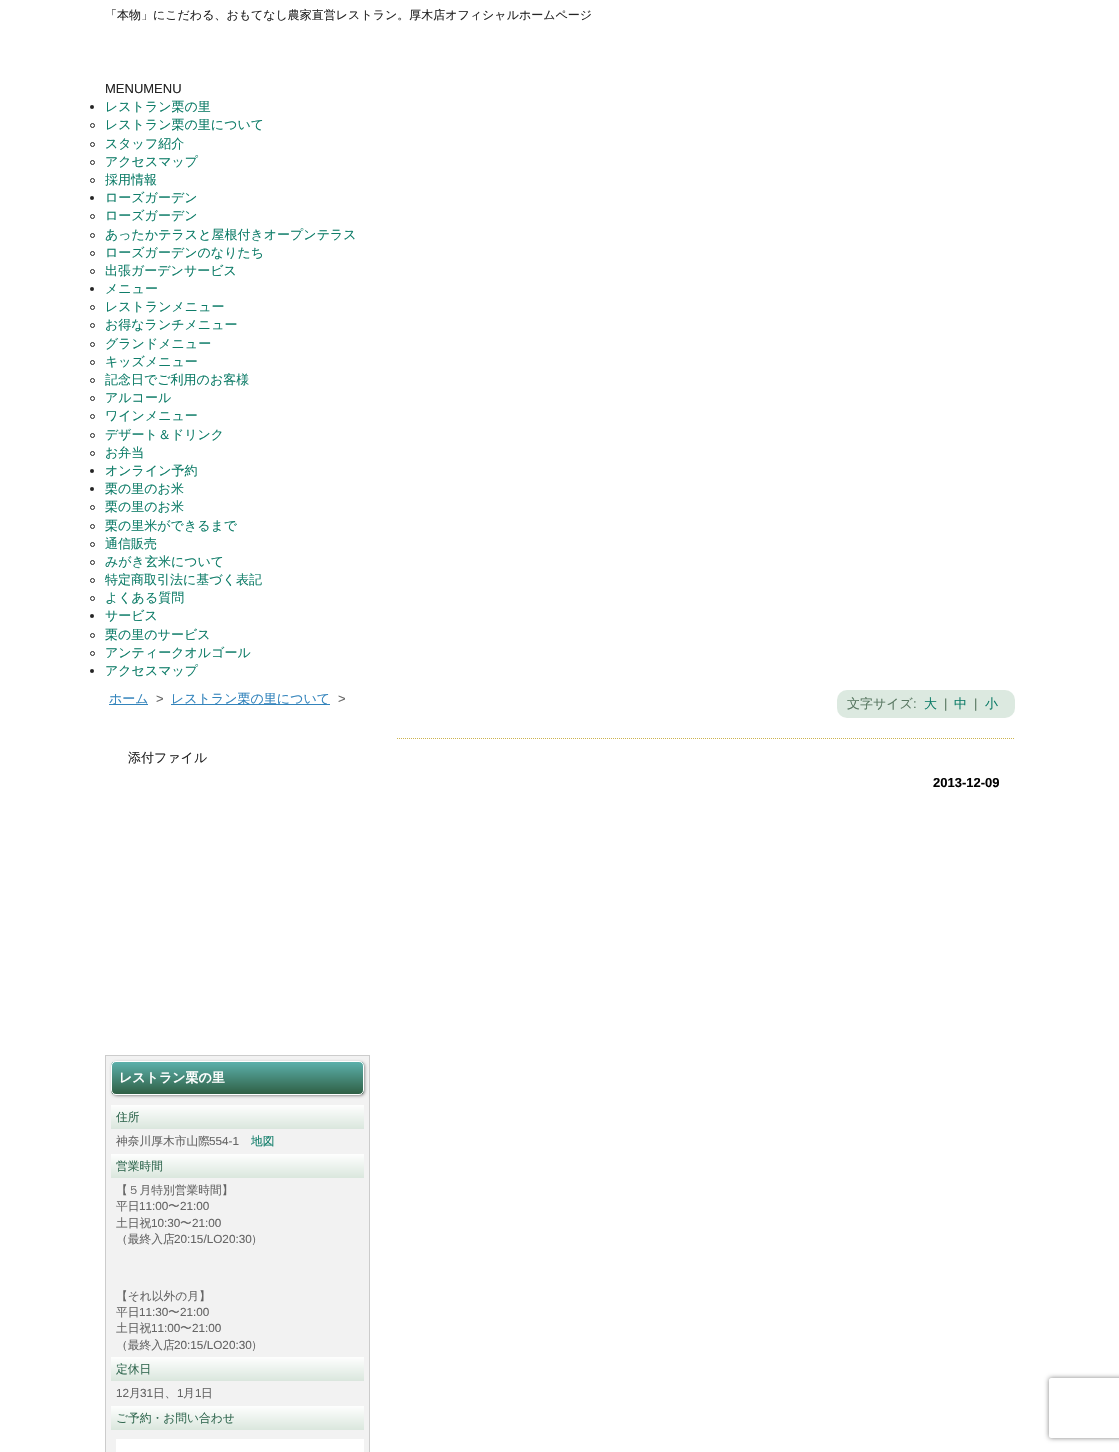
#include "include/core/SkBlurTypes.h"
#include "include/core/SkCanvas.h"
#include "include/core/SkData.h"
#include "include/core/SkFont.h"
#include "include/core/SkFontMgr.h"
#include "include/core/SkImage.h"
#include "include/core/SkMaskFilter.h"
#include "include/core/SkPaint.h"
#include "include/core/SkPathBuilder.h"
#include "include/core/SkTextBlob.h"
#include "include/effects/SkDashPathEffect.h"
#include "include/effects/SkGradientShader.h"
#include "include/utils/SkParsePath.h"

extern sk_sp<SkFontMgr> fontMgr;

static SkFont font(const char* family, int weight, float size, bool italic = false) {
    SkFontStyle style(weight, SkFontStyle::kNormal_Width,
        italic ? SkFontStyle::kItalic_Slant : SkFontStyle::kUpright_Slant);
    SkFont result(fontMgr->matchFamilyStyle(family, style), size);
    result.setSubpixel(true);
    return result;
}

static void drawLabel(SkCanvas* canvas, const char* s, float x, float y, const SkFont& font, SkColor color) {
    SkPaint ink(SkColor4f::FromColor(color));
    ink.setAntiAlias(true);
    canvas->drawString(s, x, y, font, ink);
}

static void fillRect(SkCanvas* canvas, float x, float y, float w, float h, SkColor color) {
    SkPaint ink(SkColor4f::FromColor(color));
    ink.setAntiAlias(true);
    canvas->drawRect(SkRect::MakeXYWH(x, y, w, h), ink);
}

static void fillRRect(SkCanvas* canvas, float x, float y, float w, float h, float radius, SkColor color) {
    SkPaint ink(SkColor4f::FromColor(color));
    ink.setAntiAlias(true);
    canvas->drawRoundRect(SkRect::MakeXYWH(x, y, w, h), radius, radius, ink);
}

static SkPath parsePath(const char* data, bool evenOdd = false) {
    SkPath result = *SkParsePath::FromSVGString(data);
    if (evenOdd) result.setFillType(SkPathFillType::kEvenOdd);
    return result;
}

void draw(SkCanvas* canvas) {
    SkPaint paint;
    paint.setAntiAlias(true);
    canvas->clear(0xFFFFFFFF);
    SkFont font1 = font("WenQuanYi Zen Hei", 500, 12);
    drawLabel(canvas, "「本物」にこだわる、おもてなし農家直営レストラン。厚木店オフィシャルホームページ", 105, 19, font1, 0xFF252525);
    SkFont font2 = font("Liberation Sans", 400, 13);
    drawLabel(canvas, "MENUMENU", 105, 93, font2, 0xFF252525);
    paint.setColor(0xFF252525);
    canvas->drawCircle(92, 107, 2, paint);
    SkFont font3 = font("WenQuanYi Zen Hei", 500, 13);
    drawLabel(canvas, "レストラン栗の里", 105, 111, font3, 0xFF0F7D69);
    paint.setStroke(true);
    paint.setStrokeWidth(1);
    canvas->drawCircle(92.5f, 125.5f, 2, paint);
    drawLabel(canvas, "レストラン栗の里について", 105, 129, font3, 0xFF0F7D69);
    canvas->drawCircle(92.5f, 144.5f, 2, paint);
    drawLabel(canvas, "スタッフ紹介", 105, 148, font3, 0xFF0F7D69);
    canvas->drawCircle(92.5f, 162.5f, 2, paint);
    drawLabel(canvas, "アクセスマップ", 105, 166, font3, 0xFF0F7D69);
    canvas->drawCircle(92.5f, 180.5f, 2, paint);
    drawLabel(canvas, "採用情報", 105, 184, font3, 0xFF0F7D69);
    paint.setStroke(false);
    canvas->drawCircle(92, 198, 2, paint);
    drawLabel(canvas, "ローズガーデン", 105, 202, font3, 0xFF0F7D69);
    paint.setStroke(true);
    canvas->drawCircle(92.5f, 216.5f, 2, paint);
    drawLabel(canvas, "ローズガーデン", 105, 220, font3, 0xFF0F7D69);
    canvas->drawCircle(92.5f, 235.5f, 2, paint);
    drawLabel(canvas, "あったかテラスと屋根付きオープンテラス", 105, 239, font3, 0xFF0F7D69);
    canvas->drawCircle(92.5f, 253.5f, 2, paint);
    drawLabel(canvas, "ローズガーデンのなりたち", 105, 257, font3, 0xFF0F7D69);
    canvas->drawCircle(92.5f, 271.5f, 2, paint);
    drawLabel(canvas, "出張ガーデンサービス", 105, 275, font3, 0xFF0F7D69);
    paint.setStroke(false);
    canvas->drawCircle(92, 289, 2, paint);
    drawLabel(canvas, "メニュー", 105, 293, font3, 0xFF0F7D69);
    paint.setStroke(true);
    canvas->drawCircle(92.5f, 307.5f, 2, paint);
    drawLabel(canvas, "レストランメニュー", 105, 311, font3, 0xFF0F7D69);
    canvas->drawCircle(92.5f, 325.5f, 2, paint);
    drawLabel(canvas, "お得なランチメニュー", 105, 329, font3, 0xFF0F7D69);
    canvas->drawCircle(92.5f, 344.5f, 2, paint);
    drawLabel(canvas, "グランドメニュー", 105, 348, font3, 0xFF0F7D69);
    canvas->drawCircle(92.5f, 362.5f, 2, paint);
    drawLabel(canvas, "キッズメニュー", 105, 366, font3, 0xFF0F7D69);
    canvas->drawCircle(92.5f, 380.5f, 2, paint);
    drawLabel(canvas, "記念日でご利用のお客様", 105, 384, font3, 0xFF0F7D69);
    canvas->drawCircle(92.5f, 398.5f, 2, paint);
    drawLabel(canvas, "アルコール", 105, 402, font3, 0xFF0F7D69);
    canvas->drawCircle(92.5f, 416.5f, 2, paint);
    drawLabel(canvas, "ワインメニュー", 105, 420, font3, 0xFF0F7D69);
    canvas->drawCircle(92.5f, 435.5f, 2, paint);
    drawLabel(canvas, "デザート＆ドリンク", 105, 439, font3, 0xFF0F7D69);
    canvas->drawCircle(92.5f, 453.5f, 2, paint);
    drawLabel(canvas, "お弁当", 105, 457, font3, 0xFF0F7D69);
    paint.setStroke(false);
    canvas->drawCircle(92, 471, 2, paint);
    drawLabel(canvas, "オンライン予約", 105, 475, font3, 0xFF0F7D69);
    canvas->drawCircle(92, 489, 2, paint);
    drawLabel(canvas, "栗の里のお米", 105, 493, font3, 0xFF0F7D69);
    paint.setStroke(true);
    canvas->drawCircle(92.5f, 507.5f, 2, paint);
    drawLabel(canvas, "栗の里のお米", 105, 511, font3, 0xFF0F7D69);
    canvas->drawCircle(92.5f, 526.5f, 2, paint);
    drawLabel(canvas, "栗の里米ができるまで", 105, 530, font3, 0xFF0F7D69);
    canvas->drawCircle(92.5f, 544.5f, 2, paint);
    drawLabel(canvas, "通信販売", 105, 548, font3, 0xFF0F7D69);
    canvas->drawCircle(92.5f, 562.5f, 2, paint);
    drawLabel(canvas, "みがき玄米について", 105, 566, font3, 0xFF0F7D69);
    canvas->drawCircle(92.5f, 580.5f, 2, paint);
    drawLabel(canvas, "特定商取引法に基づく表記", 105, 584, font3, 0xFF0F7D69);
    canvas->drawCircle(92.5f, 598.5f, 2, paint);
    drawLabel(canvas, "よくある質問", 105, 602, font3, 0xFF0F7D69);
    paint.setStroke(false);
    canvas->drawCircle(92, 616, 2, paint);
    drawLabel(canvas, "サービス", 105, 620, font3, 0xFF0F7D69);
    paint.setStroke(true);
    canvas->drawCircle(92.5f, 635.5f, 2, paint);
    drawLabel(canvas, "栗の里のサービス", 105, 639, font3, 0xFF0F7D69);
    canvas->drawCircle(92.5f, 653.5f, 2, paint);
    drawLabel(canvas, "アンティークオルゴール", 105, 657, font3, 0xFF0F7D69);
    paint.setStroke(false);
    canvas->drawCircle(92, 671, 2, paint);
    drawLabel(canvas, "アクセスマップ", 105, 675, font3, 0xFF0F7D69);
    fillRect(canvas, 109, 704, 39, 1, 0xFF3384BC);
    drawLabel(canvas, "ホーム", 109, 703, font3, 0xFF3384BC);
    drawLabel(canvas, ">", 156, 703, font2, 0xFF666666);
    fillRect(canvas, 171, 704, 159, 1, 0xFF3384BC);
    drawLabel(canvas, "レストラン栗の里について", 171, 703, font3, 0xFF3384BC);
    drawLabel(canvas, ">", 338, 703, font2, 0xFF666666);
    fillRRect(canvas, 837, 690, 178, 28, 10, 0xFFDCE9E0);
    drawLabel(canvas, "文字サイズ", 847, 708, font3, 0xFF597862);
    drawLabel(canvas, ":", 913, 708, font2, 0xFF597862);
    drawLabel(canvas, "大", 924, 708, font3, 0xFF0F7D69);
    drawLabel(canvas, "|", 944, 708, font2, 0xFF597862);
    drawLabel(canvas, "中", 954, 708, font3, 0xFF0F7D69);
    drawLabel(canvas, "|", 974, 708, font2, 0xFF597862);
    drawLabel(canvas, "小", 985, 708, font3, 0xFF0F7D69);
    drawLabel(canvas, "添付ファイル", 128, 762, font3, 0xFF252525);
    paint.setColor(0xFFF2F2F2);
    canvas->drawRect(SkRect::MakeXYWH(105.5f, 1055.5f, 264, 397), paint);
    paint.setStroke(true);
    paint.setColor(0xFFCCCCCC);
    canvas->drawRect(SkRect::MakeXYWH(105.5f, 1055.5f, 264, 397), paint);
    paint.setStroke(false);
    paint.setColor(0x66000000);
    paint.setMaskFilter(SkMaskFilter::MakeBlur(kNormal_SkBlurStyle, 1.5f));
    canvas->drawRoundRect(SkRect::MakeXYWH(112, 1062, 253, 34), 5, 5, paint);
    paint.setMaskFilter(nullptr);
    canvas->save();
    canvas->clipPath(parsePath("M116 1061H359C362 1061 364 1063 364 1066V1090C364 1093 362 1095 359 1095H116C113 1095 111 1093 111 1090V1066C111 1063 113 1061 116 1061Z"), true);
    {
        const SkColor colors[] = {0xFF5CB0AB, 0xFF2F6045};
        const float stops[] = {0, 1};
        const SkPoint ends[] = {{238, 1062}, {238, 1094}};
        paint.setShader(SkGradientShader::MakeLinear(ends, colors, stops, 2, SkTileMode::kClamp));
        paint.setAlpha(255);
    }
    canvas->drawRect(SkRect::MakeXYWH(111, 1062, 253, 32), paint);
    canvas->restore();
    paint.setStroke(true);
    paint.setShader(nullptr);
    paint.setColor(0xFFFFFFFF);
    canvas->drawRoundRect(SkRect::MakeXYWH(111.5f, 1061.5f, 252, 33), 4.5f, 4.5f, paint);
    SkFont font4 = font("WenQuanYi Zen Hei", 700, 13);
    drawLabel(canvas, "レストラン栗の里", 119, 1082, font4, 0xFFFFFFFF);
    paint.setStroke(false);
    {
        const SkColor colors[] = {0xFFFEFEFE, 0xFFDAE6DD};
        const float stops[] = {0, 1};
        const SkPoint ends[] = {{238, 1105}, {238, 1129}};
        paint.setShader(SkGradientShader::MakeLinear(ends, colors, stops, 2, SkTileMode::kClamp));
        paint.setAlpha(255);
    }
    canvas->drawRect(SkRect::MakeXYWH(111, 1105, 253, 24), paint);
    SkFont font5 = font("WenQuanYi Zen Hei", 500, 11.75f);
    drawLabel(canvas, "住所", 116, 1121, font5, 0xFF346A52);
    drawLabel(canvas, "神奈川厚木市山際", 116, 1145, font5, 0xFF666666);
    SkFont font6 = font("Liberation Sans", 400, 11.75f);
    drawLabel(canvas, "554-1", 209, 1145, font6, 0xFF666666);
    drawLabel(canvas, "地図", 251, 1145, font5, 0xFF0F7D69);
    {
        const SkColor colors[] = {0xFFFEFEFE, 0xFFDAE6DD};
        const float stops[] = {0, 1};
        const SkPoint ends[] = {{238, 1154}, {238, 1178}};
        paint.setShader(SkGradientShader::MakeLinear(ends, colors, stops, 2, SkTileMode::kClamp));
        paint.setAlpha(255);
    }
    canvas->drawRect(SkRect::MakeXYWH(111, 1154, 253, 24), paint);
    drawLabel(canvas, "営業時間", 116, 1170, font5, 0xFF346A52);
    drawLabel(canvas, "【５月特別営業時間】", 116, 1194, font5, 0xFF666666);
    drawLabel(canvas, "平日", 116, 1210, font5, 0xFF666666);
    drawLabel(canvas, "11:00", 139, 1210, font6, 0xFF666666);
    drawLabel(canvas, "〜", 168, 1210, font5, 0xFF666666);
    drawLabel(canvas, "21:00", 180, 1210, font6, 0xFF666666);
    drawLabel(canvas, "土日祝", 116, 1227, font5, 0xFF666666);
    drawLabel(canvas, "10:30", 151, 1227, font6, 0xFF666666);
    drawLabel(canvas, "〜", 180, 1227, font5, 0xFF666666);
    drawLabel(canvas, "21:00", 192, 1227, font6, 0xFF666666);
    drawLabel(canvas, "（最終入店", 116, 1243, font5, 0xFF666666);
    drawLabel(canvas, "20:15/LO20:30", 174, 1243, font6, 0xFF666666);
    drawLabel(canvas, "）", 251, 1243, font5, 0xFF666666);
    drawLabel(canvas, "【それ以外の月】", 116, 1300, font5, 0xFF666666);
    drawLabel(canvas, "平日", 116, 1316, font5, 0xFF666666);
    drawLabel(canvas, "11:30", 139, 1316, font6, 0xFF666666);
    drawLabel(canvas, "〜", 168, 1316, font5, 0xFF666666);
    drawLabel(canvas, "21:00", 180, 1316, font6, 0xFF666666);
    drawLabel(canvas, "土日祝", 116, 1332, font5, 0xFF666666);
    drawLabel(canvas, "11:00", 151, 1332, font6, 0xFF666666);
    drawLabel(canvas, "〜", 180, 1332, font5, 0xFF666666);
    drawLabel(canvas, "21:00", 192, 1332, font6, 0xFF666666);
    drawLabel(canvas, "（最終入店", 116, 1349, font5, 0xFF666666);
    drawLabel(canvas, "20:15/LO20:30", 174, 1349, font6, 0xFF666666);
    drawLabel(canvas, "）", 251, 1349, font5, 0xFF666666);
    {
        const SkColor colors[] = {0xFFFEFEFE, 0xFFDAE6DD};
        const float stops[] = {0, 1};
        const SkPoint ends[] = {{238, 1357}, {238, 1381}};
        paint.setShader(SkGradientShader::MakeLinear(ends, colors, stops, 2, SkTileMode::kClamp));
        paint.setAlpha(255);
    }
    canvas->drawRect(SkRect::MakeXYWH(111, 1357, 253, 24), paint);
    drawLabel(canvas, "定休日", 116, 1373, font5, 0xFF346A52);
    drawLabel(canvas, "12", 116, 1397, font6, 0xFF666666);
    drawLabel(canvas, "月", 129, 1397, font5, 0xFF666666);
    drawLabel(canvas, "31", 140, 1397, font6, 0xFF666666);
    drawLabel(canvas, "日、", 153, 1397, font5, 0xFF666666);
    drawLabel(canvas, "1", 177, 1397, font6, 0xFF666666);
    drawLabel(canvas, "月", 183, 1397, font5, 0xFF666666);
    drawLabel(canvas, "1", 195, 1397, font6, 0xFF666666);
    drawLabel(canvas, "日", 201, 1397, font5, 0xFF666666);
    {
        const SkColor colors[] = {0xFFFEFEFE, 0xFFDAE6DD};
        const float stops[] = {0, 1};
        const SkPoint ends[] = {{238, 1406}, {238, 1430}};
        paint.setShader(SkGradientShader::MakeLinear(ends, colors, stops, 2, SkTileMode::kClamp));
        paint.setAlpha(255);
    }
    canvas->drawRect(SkRect::MakeXYWH(111, 1406, 253, 24), paint);
    drawLabel(canvas, "ご予約・お問い合わせ", 116, 1422, font5, 0xFF346A52);
    fillRect(canvas, 116, 1439, 248, 13, 0xFFFFFFFF);
    paint.setStroke(true);
    paint.setShader(nullptr);
    paint.setColor(0xFFCCB34F);
    paint.setPathEffect(SkDashPathEffect::Make({{1, 1}}, 0));
    canvas->drawPath(parsePath("M397 738.5H1015"), paint);
    paint.setPathEffect(nullptr);
    SkFont font7 = font("Liberation Sans", 700, 13);
    drawLabel(canvas, "2013-12-09", 933, 787, font7, 0xFF000000);
    canvas->save();
    canvas->clipPath(parsePath("M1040 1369H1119V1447H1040ZM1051 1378H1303C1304 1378 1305 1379 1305 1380V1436C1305 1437 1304 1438 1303 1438H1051C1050 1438 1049 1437 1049 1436V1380C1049 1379 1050 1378 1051 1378Z", true), true);
    paint.setStroke(false);
    paint.setColor(0xFF808080);
    paint.setMaskFilter(SkMaskFilter::MakeBlur(kNormal_SkBlurStyle, 2.5f));
    canvas->drawRoundRect(SkRect::MakeXYWH(1049, 1378, 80, 60), 2, 2, paint);
    paint.setMaskFilter(nullptr);
    canvas->restore();
}
